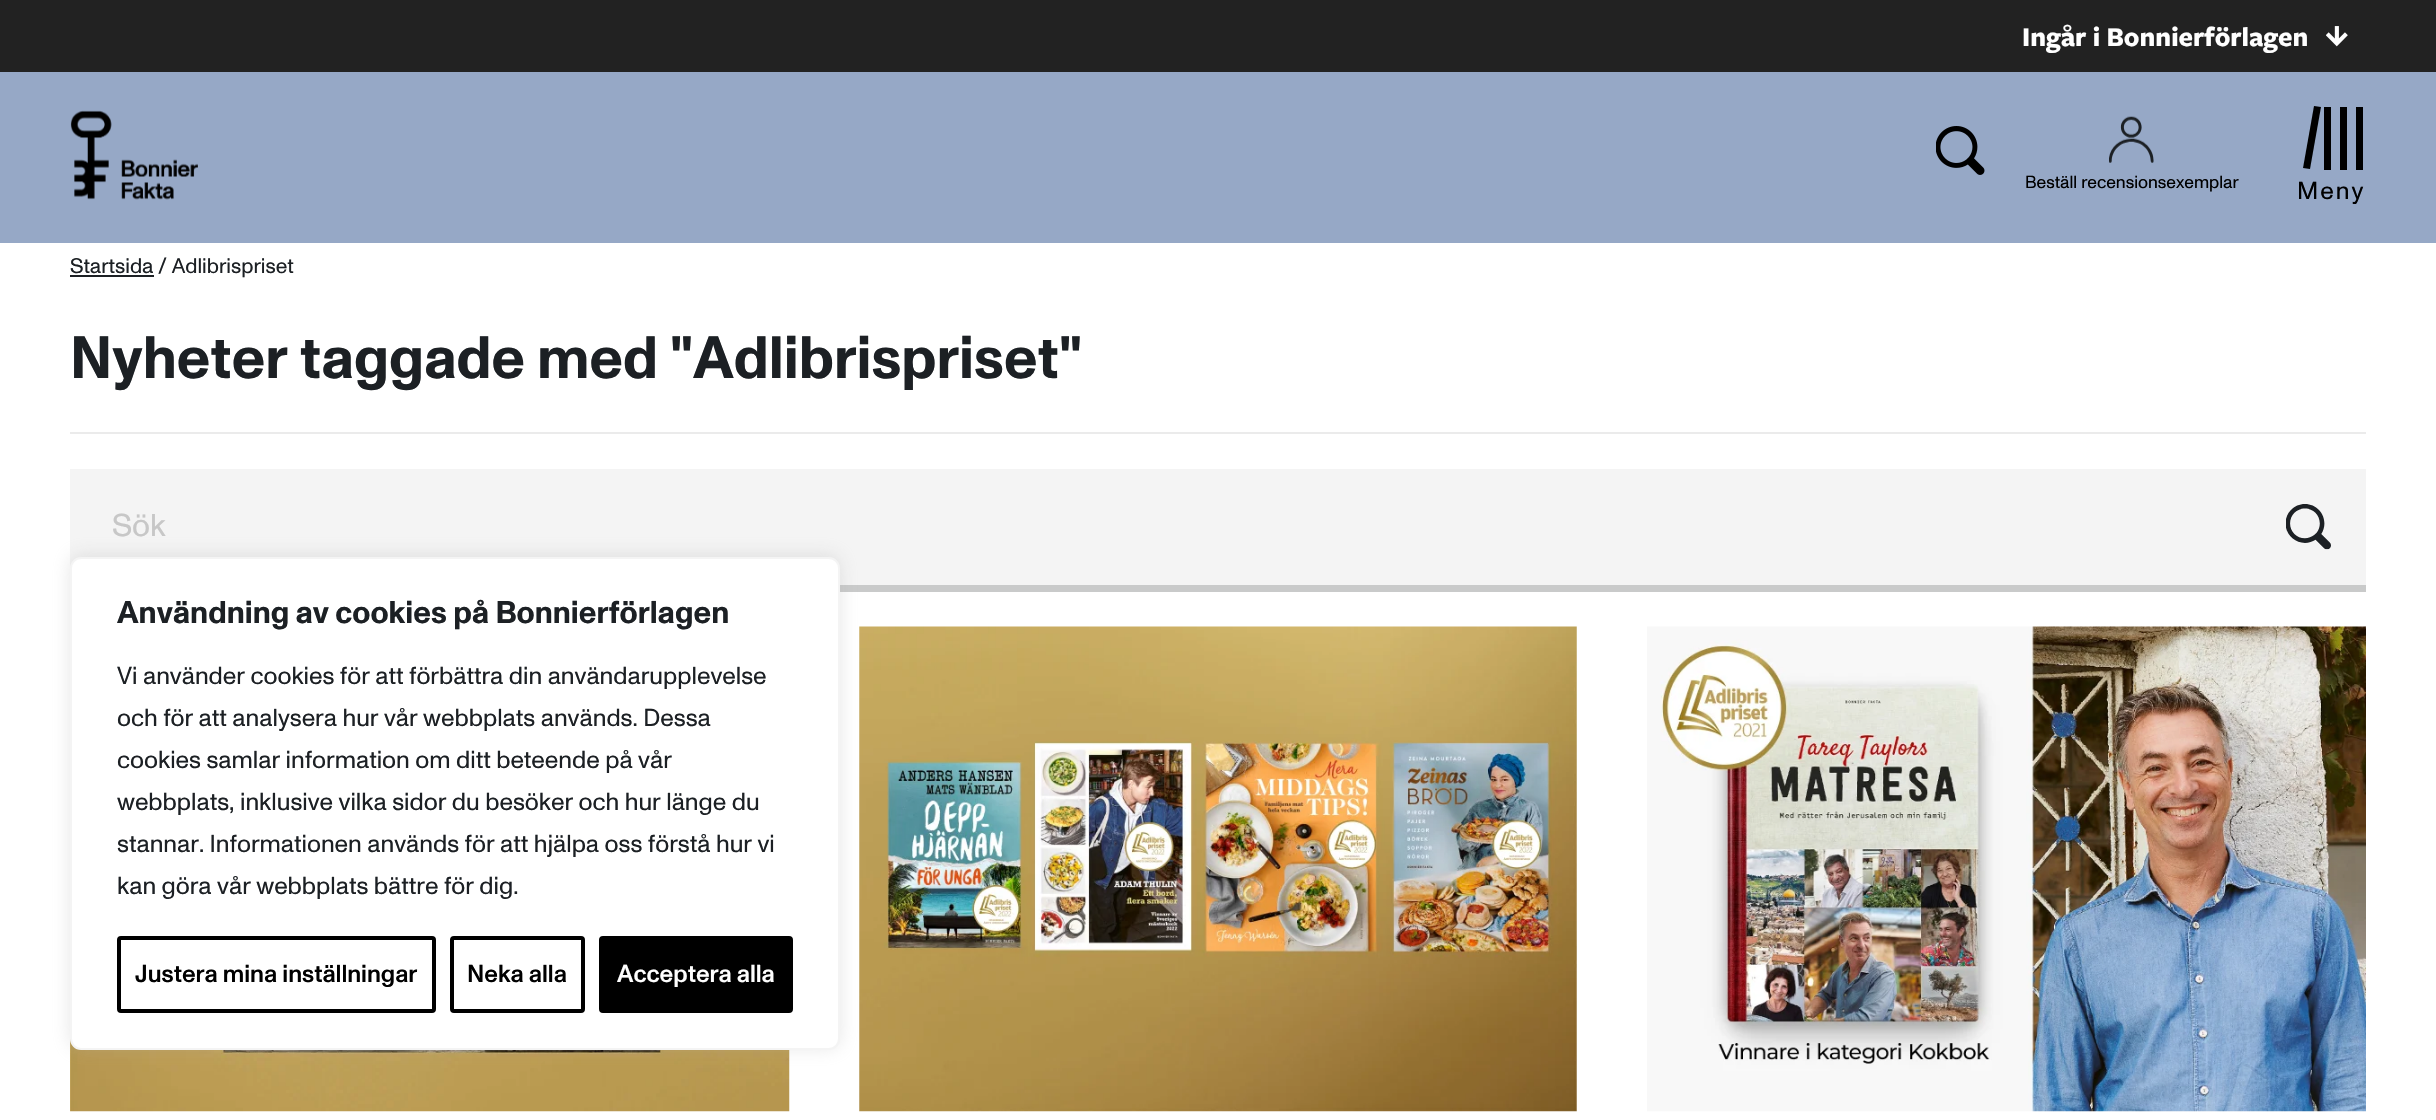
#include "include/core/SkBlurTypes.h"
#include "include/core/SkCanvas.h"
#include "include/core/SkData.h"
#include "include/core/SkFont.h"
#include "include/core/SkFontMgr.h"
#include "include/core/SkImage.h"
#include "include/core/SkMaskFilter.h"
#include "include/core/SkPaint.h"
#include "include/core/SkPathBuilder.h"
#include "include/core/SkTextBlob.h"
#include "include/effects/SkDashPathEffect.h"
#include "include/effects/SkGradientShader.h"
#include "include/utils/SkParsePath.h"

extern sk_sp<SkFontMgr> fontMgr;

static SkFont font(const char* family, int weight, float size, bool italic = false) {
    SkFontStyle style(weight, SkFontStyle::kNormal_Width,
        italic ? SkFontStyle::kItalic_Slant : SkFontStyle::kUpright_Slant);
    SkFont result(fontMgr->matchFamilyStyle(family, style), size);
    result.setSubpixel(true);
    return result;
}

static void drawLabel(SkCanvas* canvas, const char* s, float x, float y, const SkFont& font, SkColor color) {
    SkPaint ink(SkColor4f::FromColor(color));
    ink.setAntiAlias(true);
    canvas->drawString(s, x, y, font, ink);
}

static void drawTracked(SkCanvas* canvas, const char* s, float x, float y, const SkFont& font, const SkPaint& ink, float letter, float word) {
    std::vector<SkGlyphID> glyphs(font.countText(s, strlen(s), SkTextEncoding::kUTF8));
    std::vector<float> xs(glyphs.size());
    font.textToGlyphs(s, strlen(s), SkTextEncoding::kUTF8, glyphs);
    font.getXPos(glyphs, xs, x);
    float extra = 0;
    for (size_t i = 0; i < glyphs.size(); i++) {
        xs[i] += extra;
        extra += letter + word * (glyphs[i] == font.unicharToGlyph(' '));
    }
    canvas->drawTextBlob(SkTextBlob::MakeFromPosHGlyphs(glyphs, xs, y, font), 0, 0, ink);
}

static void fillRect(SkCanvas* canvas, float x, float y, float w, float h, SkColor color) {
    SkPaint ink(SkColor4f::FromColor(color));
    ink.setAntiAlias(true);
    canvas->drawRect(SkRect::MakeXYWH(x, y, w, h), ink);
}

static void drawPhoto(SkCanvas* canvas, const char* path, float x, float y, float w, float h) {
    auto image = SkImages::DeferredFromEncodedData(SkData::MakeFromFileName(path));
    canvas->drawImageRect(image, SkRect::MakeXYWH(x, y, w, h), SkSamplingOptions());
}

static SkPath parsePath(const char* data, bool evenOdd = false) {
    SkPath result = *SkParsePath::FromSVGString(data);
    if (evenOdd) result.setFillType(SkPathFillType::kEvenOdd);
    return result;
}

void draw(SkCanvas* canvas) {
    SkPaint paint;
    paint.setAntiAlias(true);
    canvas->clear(0xFFFFFFFF);
    fillRect(canvas, 0, 0, 2436, 72, 0xFF222222);
    SkFont font1 = font("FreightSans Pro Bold", 700, 28);
    drawLabel(canvas, "Ingår i Bonnierförlagen", 2022, 46, font1, 0xFFFFFFFF);
    drawPhoto(canvas, "assets/img1.png", 2326, 26, 22, 21);
    fillRect(canvas, 0, 72, 2436, 171, 0xFF96A8C6);
    drawPhoto(canvas, "assets/img2.png", 70, 110, 128, 90);
    drawPhoto(canvas, "assets/img3.png", 1936, 126, 49, 49);
    drawPhoto(canvas, "assets/img4.png", 2109, 116, 45, 47);
    SkFont font2 = font("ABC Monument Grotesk", 400, 17.5f);
    drawLabel(canvas, "Beställ recensionsexemplar", 2025, 188, font2, 0xFF000000);
    paint.setColor(0xFF000000);
    canvas->drawPath(parsePath("M2314 106L2321 107L2310 169L2303 168Z"), paint);
    fillRect(canvas, 2324, 107, 7, 63, 0xFF000000);
    fillRect(canvas, 2340, 107, 7, 63, 0xFF000000);
    fillRect(canvas, 2356, 107, 7, 63, 0xFF000000);
    SkFont font3 = font("ABC Monument Grotesk", 400, 24.5f);
    drawTracked(canvas, "Meny", 2297, 199, font3, paint, 2, 0);
    fillRect(canvas, 70, 275, 84, 2, 0xFF1C2024);
    SkFont font4 = font("ABC Monument Grotesk", 400, 21);
    drawLabel(canvas, "Startsida / Adlibrispriset", 70, 273, font4, 0xFF1C2024);
    fillRect(canvas, 70, 432, 2296, 2, 0xFFEBEBEB);
    SkFont font5 = font("ABC Monument Grotesk", 700, 59.5f);
    drawLabel(canvas, "Nyheter taggade med \"Adlibrispriset\"", 70, 378, font5, 0xFF1C2024);
    fillRect(canvas, 70, 469, 2296, 116, 0xFFF4F4F4);
    fillRect(canvas, 840, 585, 1526, 7, 0xFFC9CACA);
    SkFont font6 = font("ABC Monument Grotesk", 400, 31.5f);
    drawLabel(canvas, "Sök", 112, 536, font6, 0xFFC7C7C7);
    drawPhoto(canvas, "assets/img5.png", 2286, 504, 45, 46);
    drawPhoto(canvas, "assets/img6.png", 70, 1039, 720, 73);
    drawPhoto(canvas, "assets/img7.png", 859, 626, 718, 486);
    drawPhoto(canvas, "assets/img8.png", 1647, 626, 719, 486);
    paint.setColor(0x4DACABAB);
    paint.setMaskFilter(SkMaskFilter::MakeBlur(kNormal_SkBlurStyle, 9));
    canvas->drawRoundRect(SkRect::MakeXYWH(70, 555, 770, 493), 11, 11, paint);
    paint.setMaskFilter(nullptr);
    paint.setColor(0xFFFFFFFF);
    canvas->drawRoundRect(SkRect::MakeXYWH(71, 558, 768, 491), 10, 10, paint);
    paint.setStroke(true);
    paint.setStrokeWidth(2);
    paint.setColor(0xFFF4F4F4);
    canvas->drawRoundRect(SkRect::MakeXYWH(71, 558, 768, 491), 10, 10, paint);
    SkFont font7 = font("ABC Monument Grotesk", 700, 31.5f);
    drawLabel(canvas, "Användning av cookies på Bonnierförlagen", 117, 623, font7, 0xFF1C2024);
    drawLabel(canvas, "Vi använder cookies för att förbättra din användarupplevelse", 117, 684, font3, 0xFF1C2024);
    drawLabel(canvas, "och för att analysera hur vår webbplats används. Dessa", 117, 726, font3, 0xFF1C2024);
    drawLabel(canvas, "cookies samlar information om ditt beteende på vår", 117, 768, font3, 0xFF1C2024);
    drawLabel(canvas, "webbplats, inklusive vilka sidor du besöker och hur länge du", 117, 810, font3, 0xFF1C2024);
    drawLabel(canvas, "stannar. Informationen används för att hjälpa oss förstå hur vi", 117, 852, font3, 0xFF1C2024);
    drawLabel(canvas, "kan göra vår webbplats bättre för dig.", 117, 894, font3, 0xFF1C2024);
    paint.setStrokeWidth(4);
    paint.setColor(0xFF000000);
    canvas->drawRoundRect(SkRect::MakeXYWH(119, 938, 315, 73), 2, 2, paint);
    SkFont font8 = font("ABC Monument Grotesk", 500, 24.5f);
    drawLabel(canvas, "Justera mina inställningar", 135, 982, font8, 0xFF000000);
    canvas->drawRoundRect(SkRect::MakeXYWH(452, 938, 131, 73), 2, 2, paint);
    drawLabel(canvas, "Neka alla", 467, 982, font8, 0xFF000000);
    paint.setStroke(false);
    canvas->drawRoundRect(SkRect::MakeXYWH(601, 938, 190, 73), 2, 2, paint);
    paint.setStroke(true);
    canvas->drawRoundRect(SkRect::MakeXYWH(601, 938, 190, 73), 2, 2, paint);
    drawLabel(canvas, "Acceptera alla", 617, 982, font8, 0xFFFFFFFF);
}
